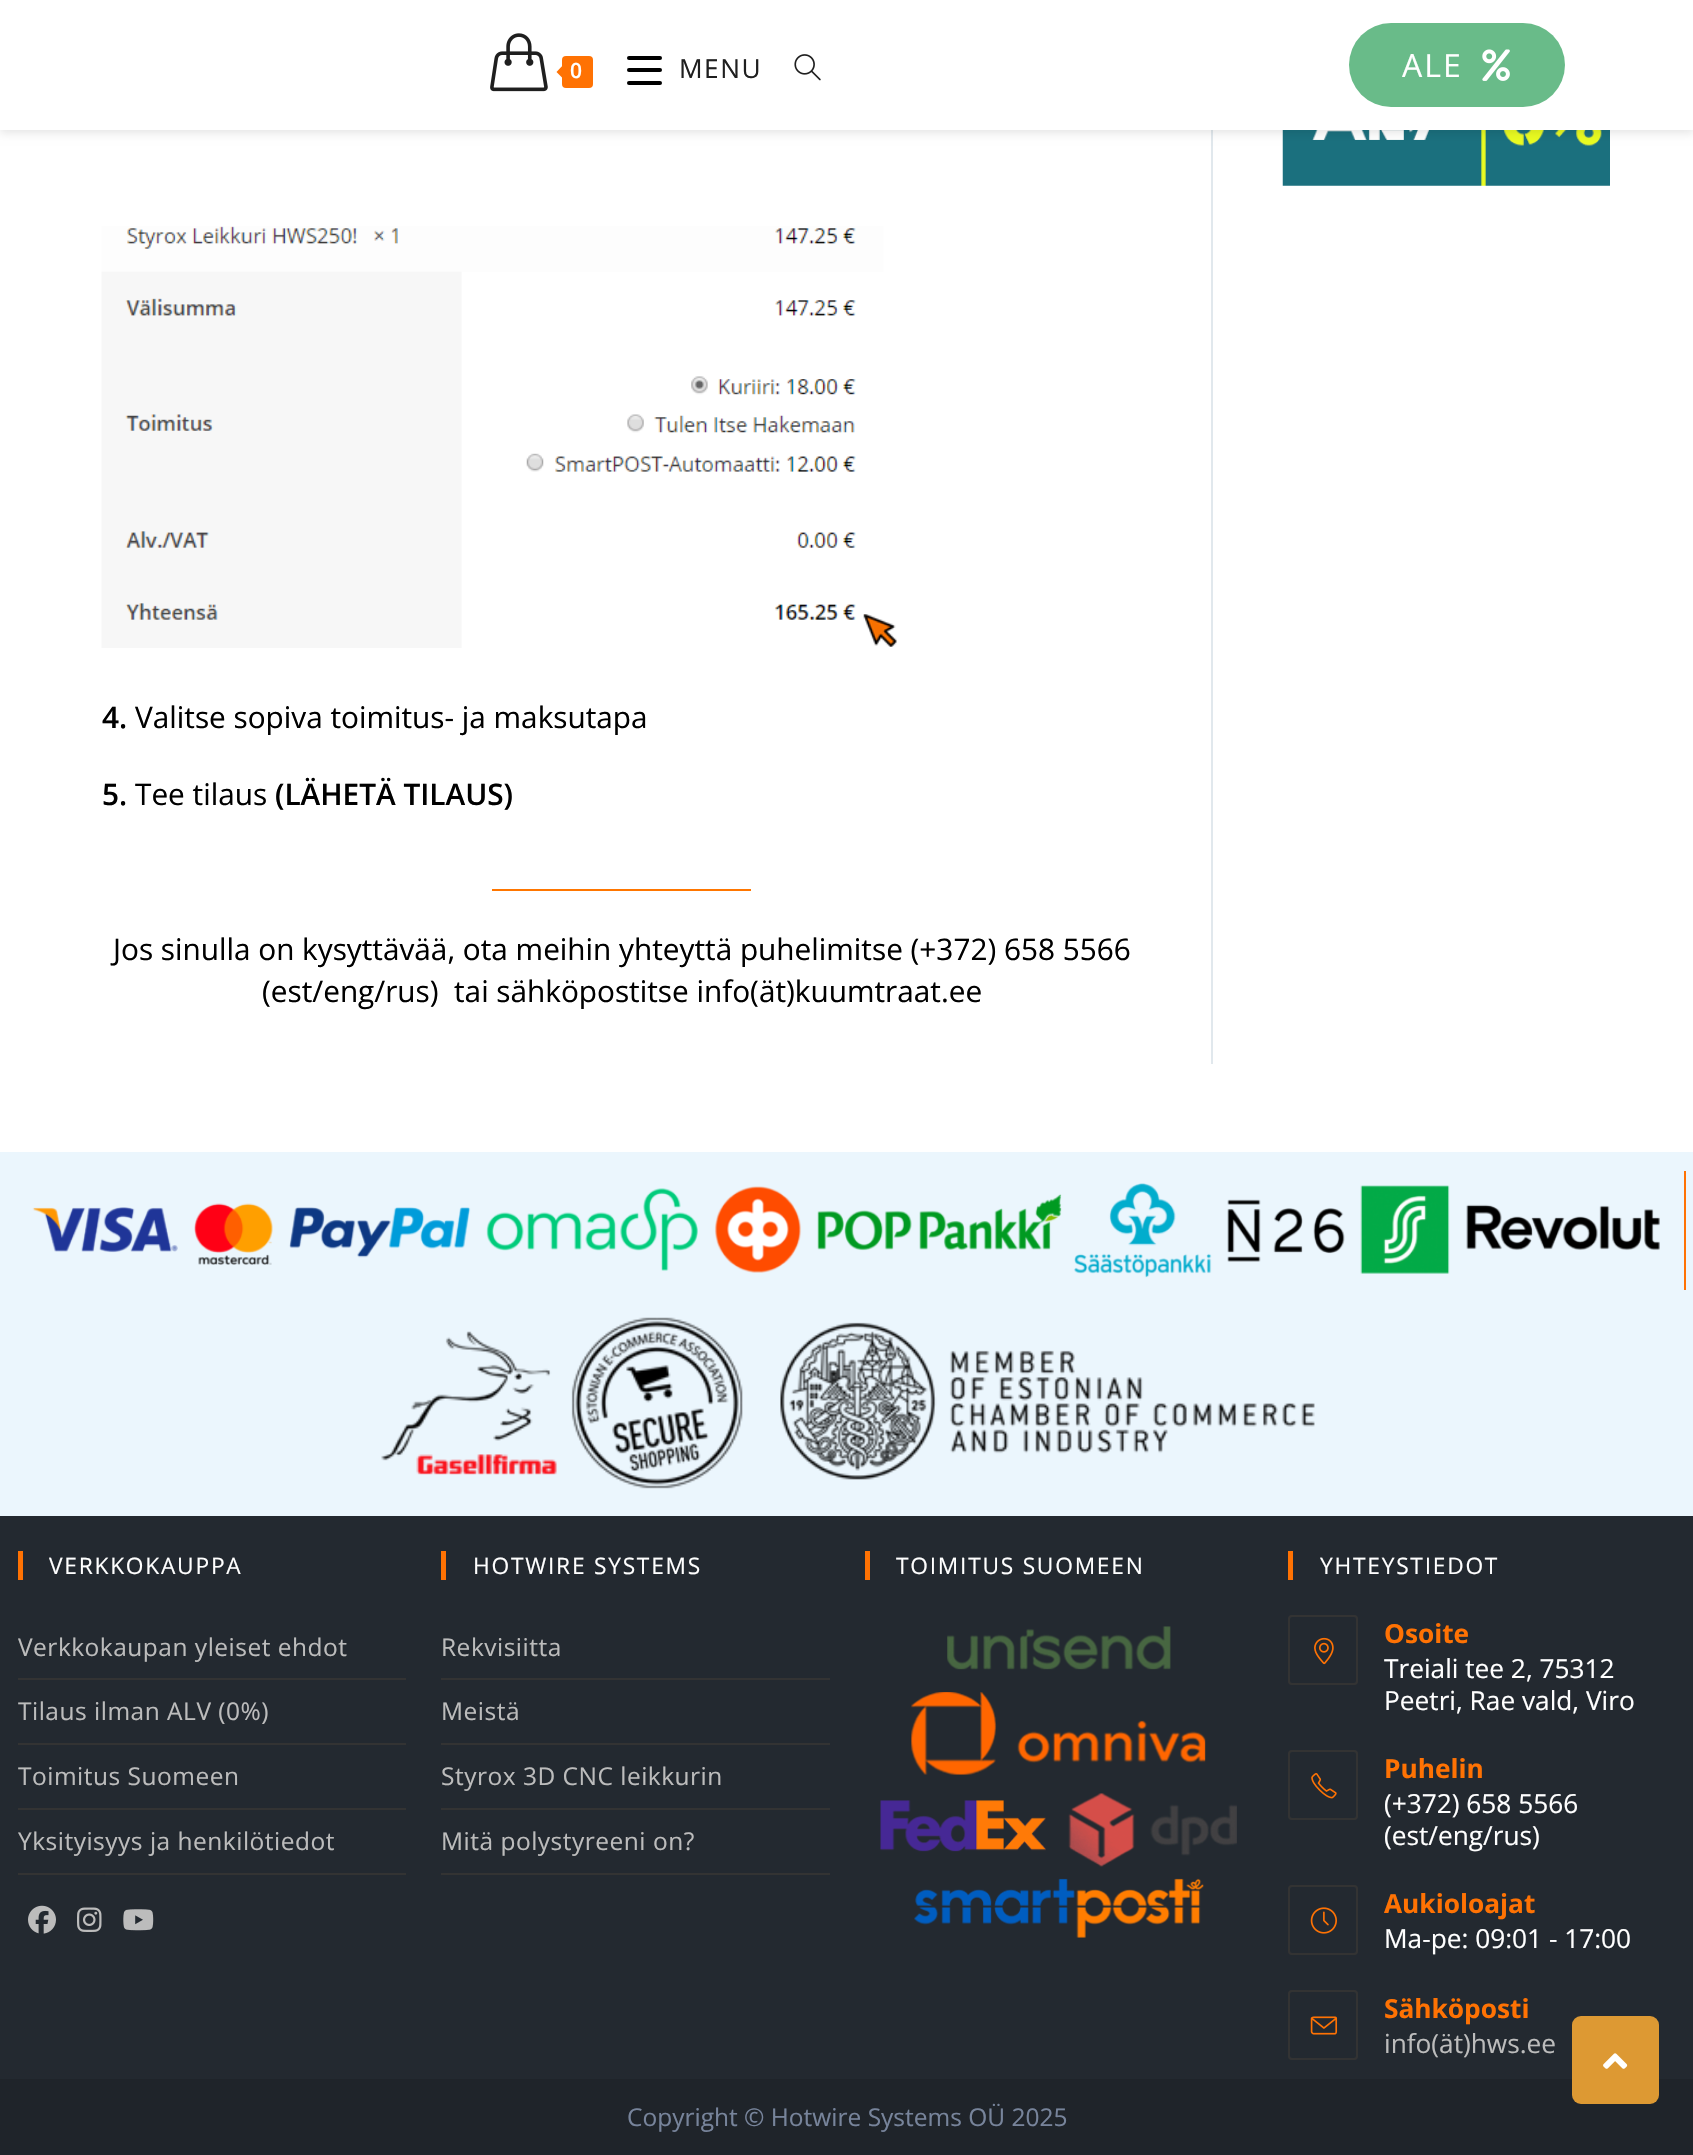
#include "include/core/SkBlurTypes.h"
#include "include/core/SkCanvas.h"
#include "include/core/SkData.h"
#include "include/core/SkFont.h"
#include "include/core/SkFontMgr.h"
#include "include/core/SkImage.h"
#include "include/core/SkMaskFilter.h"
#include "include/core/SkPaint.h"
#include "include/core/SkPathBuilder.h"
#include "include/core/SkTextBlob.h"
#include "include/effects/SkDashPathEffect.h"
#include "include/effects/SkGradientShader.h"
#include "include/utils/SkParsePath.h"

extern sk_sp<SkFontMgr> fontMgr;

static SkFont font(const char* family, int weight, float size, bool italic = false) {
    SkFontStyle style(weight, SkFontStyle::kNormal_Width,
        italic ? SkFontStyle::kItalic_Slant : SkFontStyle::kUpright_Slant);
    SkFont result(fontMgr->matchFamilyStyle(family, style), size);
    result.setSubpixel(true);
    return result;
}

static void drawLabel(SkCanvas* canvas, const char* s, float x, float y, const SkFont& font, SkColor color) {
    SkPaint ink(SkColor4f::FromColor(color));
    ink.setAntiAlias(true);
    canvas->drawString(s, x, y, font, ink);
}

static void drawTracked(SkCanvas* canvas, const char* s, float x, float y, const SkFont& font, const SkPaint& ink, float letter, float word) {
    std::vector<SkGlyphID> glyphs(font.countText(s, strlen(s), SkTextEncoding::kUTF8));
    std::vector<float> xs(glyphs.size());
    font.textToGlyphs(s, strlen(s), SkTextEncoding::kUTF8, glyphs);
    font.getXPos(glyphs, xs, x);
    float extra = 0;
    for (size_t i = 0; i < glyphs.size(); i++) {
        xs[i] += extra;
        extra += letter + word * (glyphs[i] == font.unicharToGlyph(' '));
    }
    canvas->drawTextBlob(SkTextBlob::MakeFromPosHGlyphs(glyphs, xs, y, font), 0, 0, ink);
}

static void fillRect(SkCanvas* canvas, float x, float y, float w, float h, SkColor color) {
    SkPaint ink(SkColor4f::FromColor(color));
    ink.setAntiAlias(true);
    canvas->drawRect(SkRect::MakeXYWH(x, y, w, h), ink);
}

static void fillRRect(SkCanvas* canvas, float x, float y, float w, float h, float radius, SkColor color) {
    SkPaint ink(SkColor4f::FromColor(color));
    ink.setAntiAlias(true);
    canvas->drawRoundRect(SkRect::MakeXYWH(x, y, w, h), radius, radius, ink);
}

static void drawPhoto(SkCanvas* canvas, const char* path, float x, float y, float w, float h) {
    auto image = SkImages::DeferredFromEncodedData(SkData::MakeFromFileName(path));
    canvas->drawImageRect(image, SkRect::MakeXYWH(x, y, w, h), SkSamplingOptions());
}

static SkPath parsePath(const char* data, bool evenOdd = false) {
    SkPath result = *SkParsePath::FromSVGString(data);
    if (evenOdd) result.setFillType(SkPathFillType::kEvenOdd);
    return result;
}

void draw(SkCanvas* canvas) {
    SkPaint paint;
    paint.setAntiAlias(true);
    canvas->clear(0xFFFFFFFF);
    drawPhoto(canvas, "assets/img4.png", 1282, 130, 328, 56);
    fillRect(canvas, 1211, 130, 2, 934, 0xFFE1E8ED);
    paint.setColor(0x1A000000);
    paint.setMaskFilter(SkMaskFilter::MakeBlur(kNormal_SkBlurStyle, 4.5f));
    canvas->drawRect(SkRect::MakeXYWH(0, 4, 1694, 129), paint);
    paint.setMaskFilter(nullptr);
    fillRect(canvas, 0, 0, 1693, 130, 0xFFFFFFFF);
    drawPhoto(canvas, "assets/img1.png", 490, 33, 58, 59);
    fillRRect(canvas, 562, 56, 31, 32, 4, 0xFFFF7203);
    paint.setColor(0xFFFF7203);
    canvas->drawPath(parsePath("M565 63V80.5L556.5 72Z"), paint);
    SkFont font1 = font("Open Sans", 600, 21);
    paint.setColor(0xFFFFFFFF);
    drawTracked(canvas, "0", 570, 78, font1, paint, 1.5f, 0);
    fillRRect(canvas, 627, 68, 35, 4, 2, 0xFF000000);
    fillRRect(canvas, 627, 56, 35, 4, 2, 0xFF000000);
    fillRRect(canvas, 627, 81, 35, 4, 2, 0xFF000000);
    SkFont font2 = font("Open Sans", 400, 26.25f);
    paint.setColor(0xFF1F1F1F);
    drawTracked(canvas, "MENU", 679, 78, font2, paint, 1.5f, 0);
    drawPhoto(canvas, "assets/img2.png", 794, 54, 27, 27);
    fillRRect(canvas, 1349, 23, 216, 84, 42, 0xFF69BB89);
    SkFont font3 = font("Open Sans", 400, 32);
    paint.setColor(0xFFFFFFFF);
    drawTracked(canvas, "ALE", 1402, 77, font3, paint, 2, 0);
    drawPhoto(canvas, "assets/img3.png", 1482, 49, 28, 32);
    drawPhoto(canvas, "assets/img5.png", 101, 226, 796, 422);
    SkFont font4 = font("Open Sans", 600, 29.75f);
    drawLabel(canvas, "4.", 102, 728, font4, 0xFF000000);
    SkFont font5 = font("Open Sans", 400, 29.75f);
    drawLabel(canvas, "Valitse sopiva toimitus- ja maksutapa", 135, 728, font5, 0xFF000000);
    drawLabel(canvas, "5.", 102, 805, font4, 0xFF000000);
    drawLabel(canvas, "Tee tilaus", 135, 805, font5, 0xFF000000);
    drawLabel(canvas, "(LÄHETÄ TILAUS)", 275, 805, font4, 0xFF000000);
    fillRect(canvas, 492, 889, 259, 2, 0xFFFF7600);
    drawLabel(canvas, "Jos sinulla on kysyttävää, ota meihin yhteyttä puhelimitse (+372) 658 5566", 113, 960, font5, 0xFF000000);
    drawLabel(canvas, "(est/eng/rus)  tai sähköpostitse info(ät)kuumtraat.ee", 262, 1002, font5, 0xFF000000);
    fillRect(canvas, 0, 1516, 1693, 563, 0xFF232930);
    fillRect(canvas, 0, 1152, 1693, 364, 0xFFEBF6FD);
    fillRect(canvas, 1684, 1171, 2, 119, 0xFFFF7203);
    drawPhoto(canvas, "assets/img6.png", 32, 1183, 1628, 95);
    drawPhoto(canvas, "assets/img7.png", 381, 1317, 934, 172);
    fillRect(canvas, 18, 1551, 5, 29, 0xFFFF7203);
    SkFont font6 = font("Open Sans", 400, 22.75f);
    drawTracked(canvas, "VERKKOKAUPPA", 49, 1574, font6, paint, 1.75f, 0);
    fillRect(canvas, 18, 1678, 388, 2, 0xFF333333);
    SkFont font7 = font("Open Sans", 400, 24.5f);
    paint.setColor(0xFFBCBCBC);
    drawTracked(canvas, "Verkkokaupan yleiset ehdot", 18, 1656, font7, paint, 0.5f, 0);
    fillRect(canvas, 18, 1743, 388, 2, 0xFF333333);
    drawTracked(canvas, "Tilaus ilman ALV (0%)", 18, 1720, font7, paint, 0.5f, 0);
    fillRect(canvas, 18, 1808, 388, 2, 0xFF333333);
    drawTracked(canvas, "Toimitus Suomeen", 18, 1785, font7, paint, 0.5f, 0);
    fillRect(canvas, 18, 1873, 388, 2, 0xFF333333);
    drawTracked(canvas, "Yksityisyys ja henkilötiedot", 18, 1850, font7, paint, 0.5f, 0);
    drawPhoto(canvas, "assets/img8.png", 28, 1905, 28, 29);
    drawPhoto(canvas, "assets/img9.png", 77, 1907, 25, 25);
    drawPhoto(canvas, "assets/img10.png", 123, 1909, 31, 22);
    fillRect(canvas, 441, 1551, 5, 29, 0xFFFF7203);
    paint.setColor(0xFFFFFFFF);
    drawTracked(canvas, "HOTWIRE SYSTEMS", 473, 1574, font6, paint, 1.75f, 0);
    fillRect(canvas, 441, 1678, 389, 2, 0xFF333333);
    paint.setColor(0xFFBCBCBC);
    drawTracked(canvas, "Rekvisiitta", 441, 1656, font7, paint, 0.5f, 0);
    fillRect(canvas, 441, 1743, 389, 2, 0xFF333333);
    drawTracked(canvas, "Meistä", 441, 1720, font7, paint, 0.5f, 0);
    fillRect(canvas, 441, 1808, 389, 2, 0xFF333333);
    drawTracked(canvas, "Styrox 3D CNC leikkurin", 441, 1785, font7, paint, 0.5f, 0);
    fillRect(canvas, 441, 1873, 389, 2, 0xFF333333);
    drawTracked(canvas, "Mitä polystyreeni on?", 441, 1850, font7, paint, 0.5f, 0);
    fillRect(canvas, 865, 1551, 5, 29, 0xFFFF7203);
    paint.setColor(0xFFFFFFFF);
    drawTracked(canvas, "TOIMITUS SUOMEEN", 896, 1574, font6, paint, 1.75f, 0);
    drawPhoto(canvas, "assets/img11.png", 880, 1626, 357, 312);
    fillRect(canvas, 1288, 1551, 5, 29, 0xFFFF7203);
    drawTracked(canvas, "YHTEYSTIEDOT", 1320, 1574, font6, paint, 1.75f, 0);
    paint.setStroke(true);
    paint.setStrokeWidth(2);
    paint.setColor(0xFF333333);
    canvas->drawRoundRect(SkRect::MakeXYWH(1289, 1616, 68, 68), 3, 3, paint);
    drawPhoto(canvas, "assets/img12.png", 1314, 1637, 20, 28);
    SkFont font8 = font("Open Sans", 700, 26.25f);
    drawLabel(canvas, "Osoite", 1384, 1643, font8, 0xFFFF7203);
    drawLabel(canvas, "Treiali tee 2, 75312", 1384, 1678, font2, 0xFFFFFFFF);
    drawLabel(canvas, "Peetri, Rae vald, Viro", 1384, 1710, font2, 0xFFFFFFFF);
    canvas->drawRoundRect(SkRect::MakeXYWH(1289, 1751, 68, 68), 3, 3, paint);
    drawPhoto(canvas, "assets/img13.png", 1311, 1773, 26, 26);
    drawLabel(canvas, "Puhelin", 1384, 1778, font8, 0xFFFF7203);
    drawLabel(canvas, "(+372) 658 5566", 1384, 1813, font2, 0xFFFFFFFF);
    drawLabel(canvas, "(est/eng/rus)", 1384, 1845, font2, 0xFFFFFFFF);
    canvas->drawRoundRect(SkRect::MakeXYWH(1289, 1886, 68, 68), 3, 3, paint);
    drawPhoto(canvas, "assets/img14.png", 1310, 1907, 27, 27);
    drawLabel(canvas, "Aukioloajat", 1384, 1913, font8, 0xFFFF7203);
    drawLabel(canvas, "Ma-pe: 09:01 - 17:00", 1384, 1948, font2, 0xFFFFFFFF);
    canvas->drawRoundRect(SkRect::MakeXYWH(1289, 1991, 68, 68), 3, 3, paint);
    drawPhoto(canvas, "assets/img15.png", 1310, 2016, 28, 19);
    drawLabel(canvas, "Sähköposti", 1384, 2018, font8, 0xFFFF7203);
    drawLabel(canvas, "info(ät)hws.ee", 1384, 2053, font2, 0xFFBCBCBC);
    fillRect(canvas, 0, 2079, 1693, 76, 0xFF1F242A);
    drawLabel(canvas, "Copyright © Hotwire Systems OÜ 2025", 627, 2126, font7, 0xFF77849B);
    fillRRect(canvas, 1572, 2016, 87, 88, 9, 0xFFDD9933);
    drawPhoto(canvas, "assets/img16.png", 1603, 2053, 25, 16);
}
